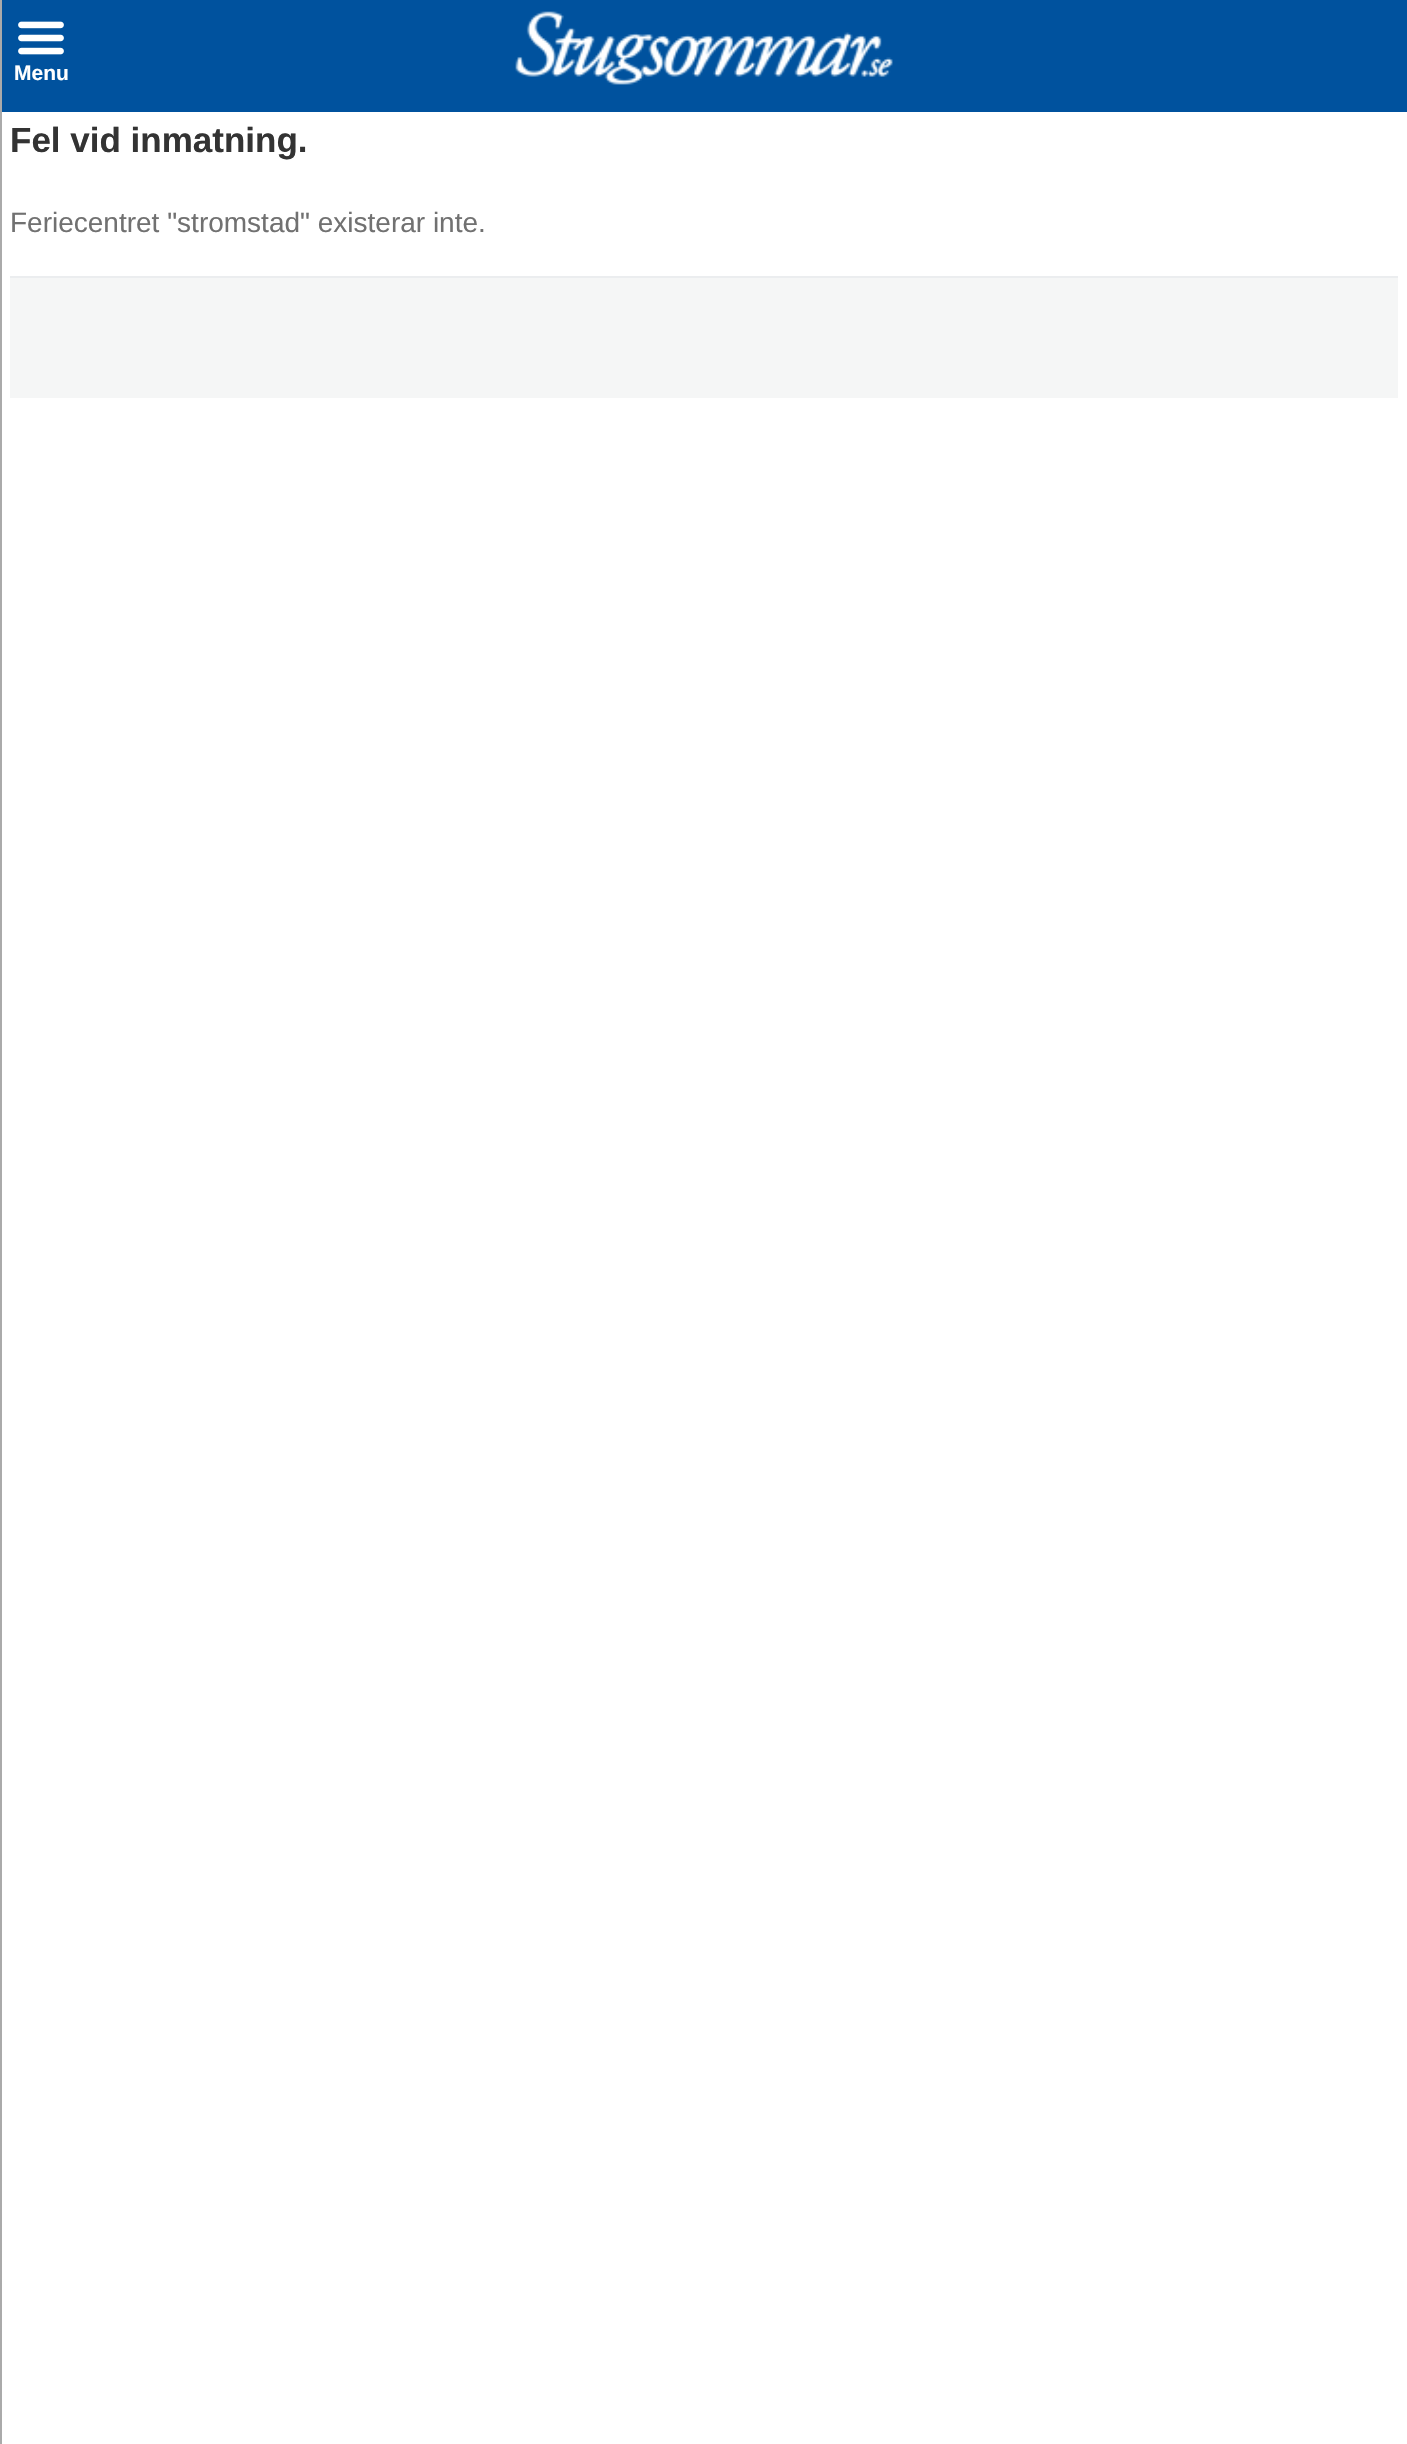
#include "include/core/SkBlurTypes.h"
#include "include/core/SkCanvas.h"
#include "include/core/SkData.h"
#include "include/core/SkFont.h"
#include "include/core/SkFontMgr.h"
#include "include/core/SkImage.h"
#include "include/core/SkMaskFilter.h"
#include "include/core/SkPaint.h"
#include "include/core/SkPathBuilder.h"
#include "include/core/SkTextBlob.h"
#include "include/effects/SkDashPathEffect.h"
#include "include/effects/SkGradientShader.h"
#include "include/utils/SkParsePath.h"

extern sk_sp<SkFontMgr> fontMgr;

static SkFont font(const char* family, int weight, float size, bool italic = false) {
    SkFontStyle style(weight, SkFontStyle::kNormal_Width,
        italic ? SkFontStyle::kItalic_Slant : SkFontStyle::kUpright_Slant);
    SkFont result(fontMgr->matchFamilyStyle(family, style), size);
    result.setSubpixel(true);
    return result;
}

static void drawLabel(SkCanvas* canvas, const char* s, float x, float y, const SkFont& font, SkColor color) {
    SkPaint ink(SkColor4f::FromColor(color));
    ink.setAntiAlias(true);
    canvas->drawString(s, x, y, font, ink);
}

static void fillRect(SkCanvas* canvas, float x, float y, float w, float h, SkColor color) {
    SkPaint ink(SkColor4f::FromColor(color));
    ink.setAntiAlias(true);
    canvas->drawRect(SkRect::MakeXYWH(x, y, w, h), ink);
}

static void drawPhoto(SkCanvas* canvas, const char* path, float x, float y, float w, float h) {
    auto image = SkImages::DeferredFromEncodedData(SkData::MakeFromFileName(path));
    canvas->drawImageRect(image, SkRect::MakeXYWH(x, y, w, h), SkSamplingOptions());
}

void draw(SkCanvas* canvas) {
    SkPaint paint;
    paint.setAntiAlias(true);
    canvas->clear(0xFFFFFFFF);
    fillRect(canvas, 0, 0, 2, 2444, 0xFFAAAAAA);
    fillRect(canvas, 2, 0, 1405, 112, 0xFF00529E);
    drawPhoto(canvas, "assets/img1.png", 18, 21, 46, 34);
    SkFont font1 = font("Liberation Sans", 700, 21);
    drawLabel(canvas, "Menu", 14, 80, font1, 0xFFFFFFFF);
    drawPhoto(canvas, "assets/img2.png", 515, 11, 378, 74);
    SkFont font2 = font("Liberation Sans", 700, 35);
    drawLabel(canvas, "Fel vid inmatning.", 10, 152, font2, 0xFF333333);
    SkFont font3 = font("Liberation Sans", 400, 28);
    drawLabel(canvas, "Feriecentret \"stromstad\" existerar inte.", 10, 232, font3, 0xFF717171);
    fillRect(canvas, 10, 278, 1388, 120, 0xFFF5F6F6);
    fillRect(canvas, 10, 276, 1388, 2, 0xFFEBEDEF);
}
